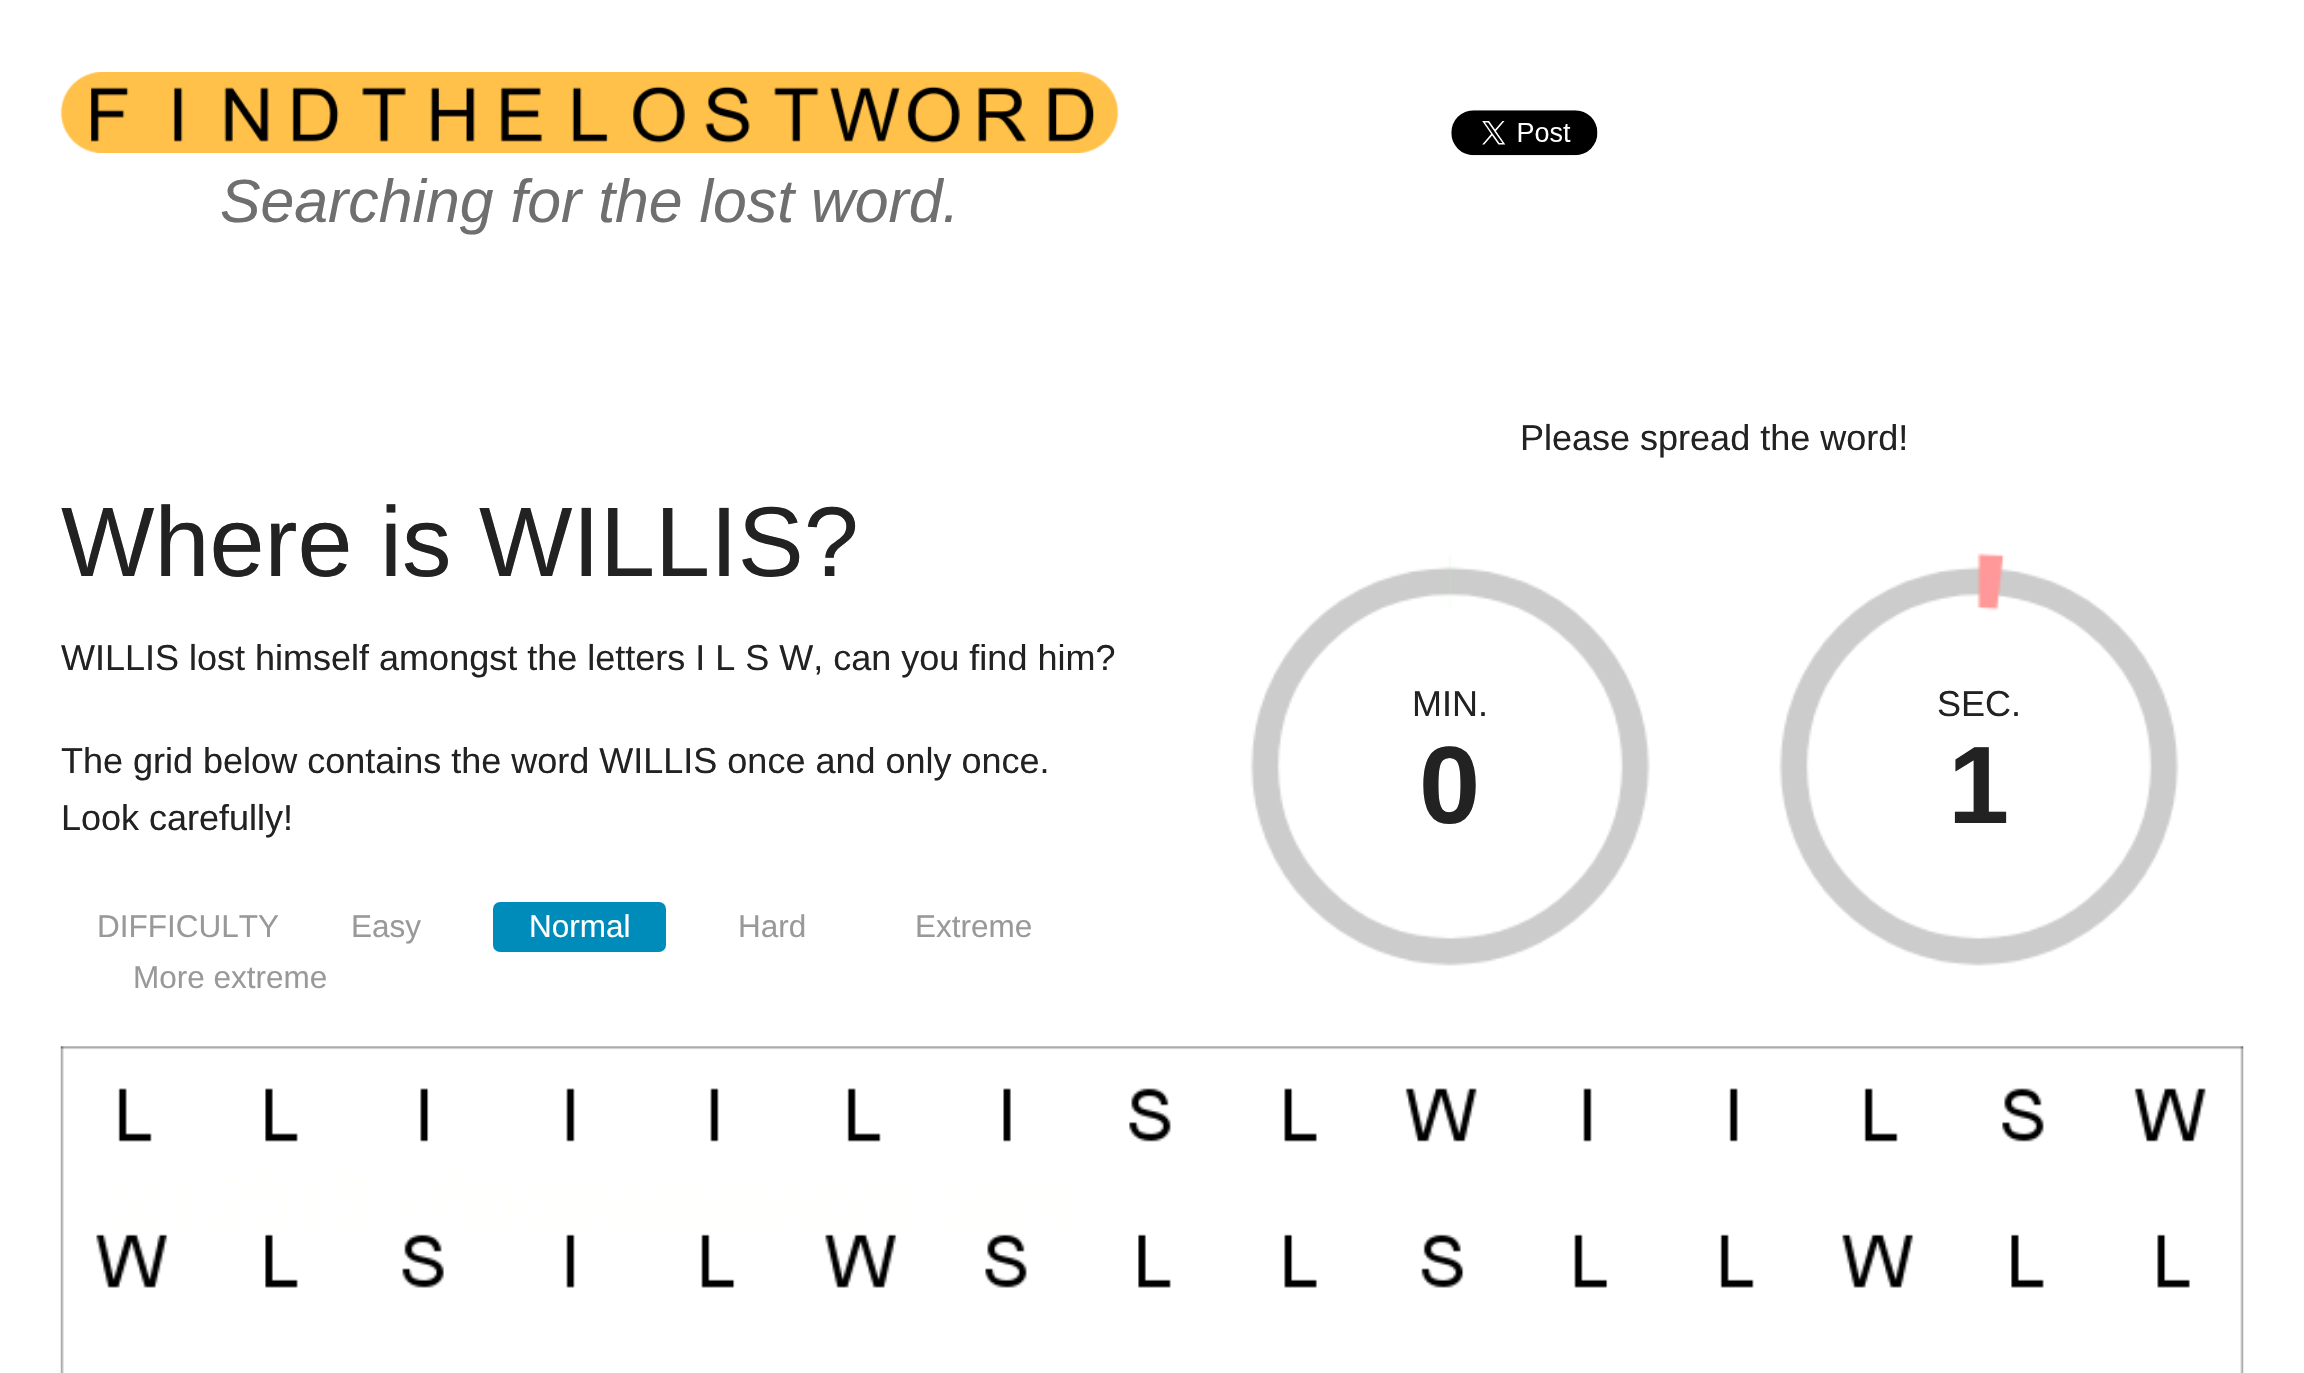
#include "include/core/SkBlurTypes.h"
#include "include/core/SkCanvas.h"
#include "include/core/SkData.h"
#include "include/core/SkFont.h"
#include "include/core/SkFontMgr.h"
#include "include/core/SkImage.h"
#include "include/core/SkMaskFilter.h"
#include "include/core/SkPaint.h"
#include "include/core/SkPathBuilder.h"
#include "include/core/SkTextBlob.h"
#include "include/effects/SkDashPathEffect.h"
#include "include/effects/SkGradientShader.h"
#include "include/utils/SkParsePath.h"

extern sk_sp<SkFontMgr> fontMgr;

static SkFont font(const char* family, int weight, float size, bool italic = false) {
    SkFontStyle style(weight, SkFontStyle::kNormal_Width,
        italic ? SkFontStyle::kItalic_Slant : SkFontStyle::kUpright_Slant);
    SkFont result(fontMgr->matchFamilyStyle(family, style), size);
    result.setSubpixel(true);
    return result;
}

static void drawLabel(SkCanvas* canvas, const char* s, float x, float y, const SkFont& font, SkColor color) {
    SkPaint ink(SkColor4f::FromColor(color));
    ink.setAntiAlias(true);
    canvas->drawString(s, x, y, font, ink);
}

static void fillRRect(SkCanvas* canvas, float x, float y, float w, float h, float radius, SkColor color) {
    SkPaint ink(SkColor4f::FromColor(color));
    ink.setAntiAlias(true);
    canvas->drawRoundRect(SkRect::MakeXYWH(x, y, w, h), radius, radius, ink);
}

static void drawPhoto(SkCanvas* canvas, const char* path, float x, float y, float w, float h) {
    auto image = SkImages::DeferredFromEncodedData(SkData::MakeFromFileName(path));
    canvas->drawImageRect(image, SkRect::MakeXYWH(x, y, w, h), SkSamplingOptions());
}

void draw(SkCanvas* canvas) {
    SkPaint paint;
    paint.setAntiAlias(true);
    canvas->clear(0xFFFFFFFF);
    drawPhoto(canvas, "assets/img1.png", 60, 72, 1059, 81);
    SkFont font1 = font("Liberation Sans", 400, 60.75f, true);
    drawLabel(canvas, "Searching for the lost word.", 220, 222, font1, 0xFF6F6F6F);
    drawPhoto(canvas, "assets/img2.png", 1451, 110, 147, 46);
    SkFont font2 = font("Liberation Sans", 400, 36);
    drawLabel(canvas, "Please spread the word!", 1520, 450, font2, 0xFF222222);
    SkFont font3 = font("Liberation Sans", 400, 99);
    drawLabel(canvas, "Where is WILLIS?", 61, 576, font3, 0xFF222222);
    drawLabel(canvas, "WILLIS lost himself amongst the letters I L S W, can you find him?", 61, 670, font2, 0xFF222222);
    drawLabel(canvas, "The grid below contains the word WILLIS once and only once.", 61, 773, font2, 0xFF222222);
    drawLabel(canvas, "Look carefully!", 61, 830, font2, 0xFF222222);
    SkFont font4 = font("Liberation Sans", 400, 31.5f);
    drawLabel(canvas, "DIFFICULTY", 97, 937, font4, 0xFF999999);
    drawLabel(canvas, "Easy", 351, 937, font4, 0xFF999999);
    fillRRect(canvas, 493, 902, 173, 50, 7, 0xFF008CBA);
    drawLabel(canvas, "Normal", 529, 937, font4, 0xFFFFFFFF);
    drawLabel(canvas, "Hard", 738, 937, font4, 0xFF999999);
    drawLabel(canvas, "Extreme", 915, 937, font4, 0xFF999999);
    drawLabel(canvas, "More extreme", 133, 988, font4, 0xFF999999);
    drawPhoto(canvas, "assets/img3.png", 1250, 553, 929, 413);
    drawLabel(canvas, "MIN.", 1412, 716, font2, 0xFF222222);
    SkFont font5 = font("Liberation Sans", 700, 110);
    drawLabel(canvas, "0", 1419, 823, font5, 0xFF222222);
    drawLabel(canvas, "SEC.", 1937, 716, font2, 0xFF222222);
    drawLabel(canvas, "1", 1948, 823, font5, 0xFF222222);
    drawPhoto(canvas, "assets/img4.png", 60, 1046, 2184, 327);
}
